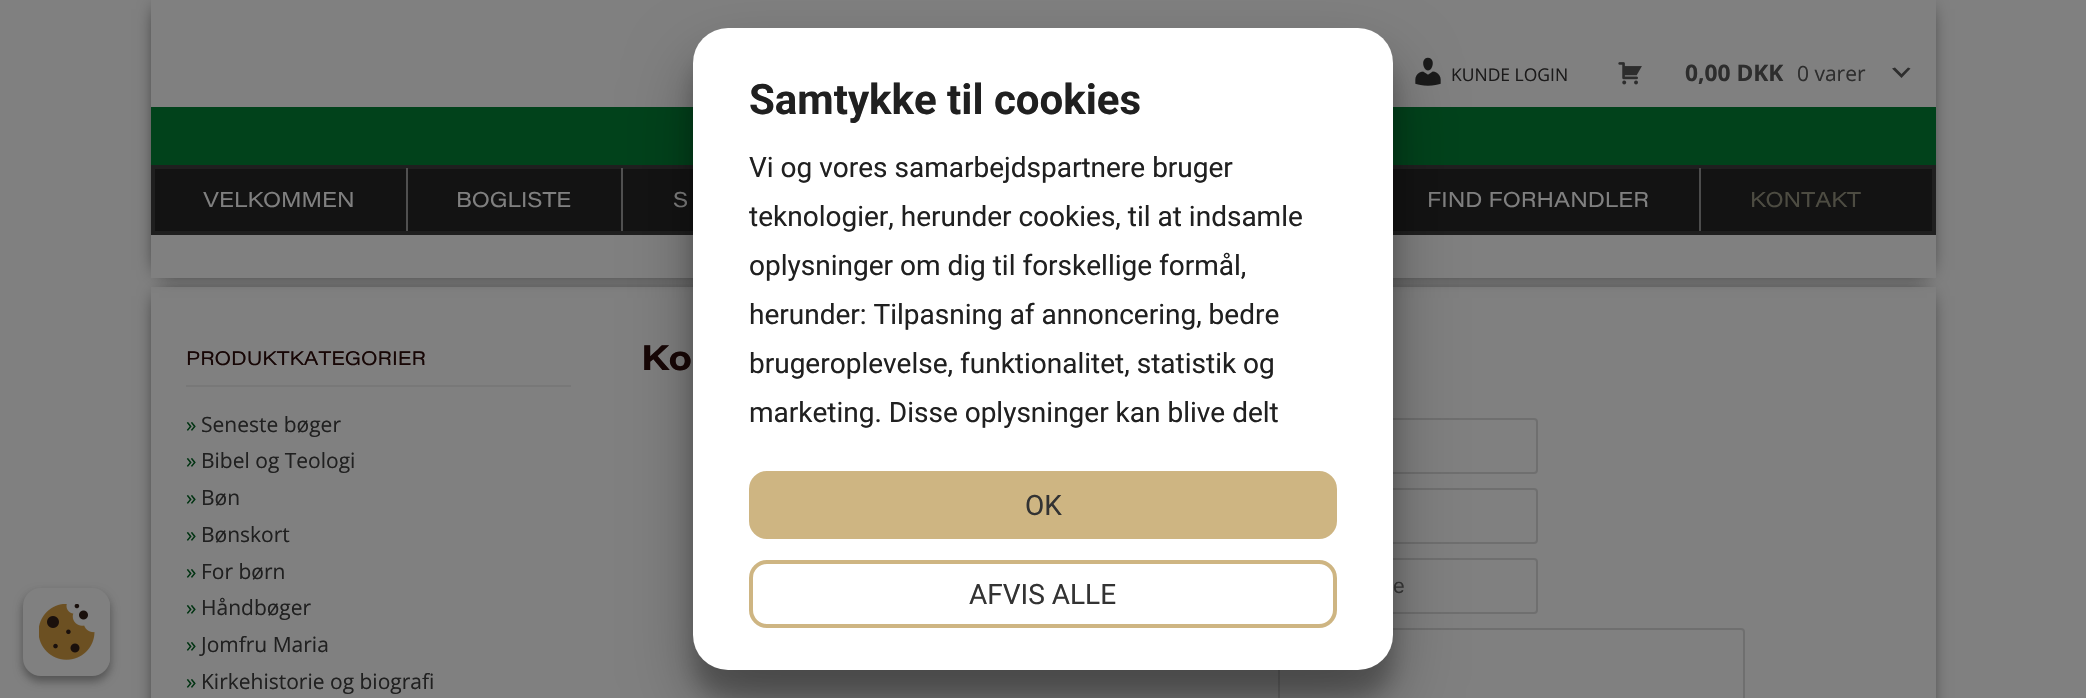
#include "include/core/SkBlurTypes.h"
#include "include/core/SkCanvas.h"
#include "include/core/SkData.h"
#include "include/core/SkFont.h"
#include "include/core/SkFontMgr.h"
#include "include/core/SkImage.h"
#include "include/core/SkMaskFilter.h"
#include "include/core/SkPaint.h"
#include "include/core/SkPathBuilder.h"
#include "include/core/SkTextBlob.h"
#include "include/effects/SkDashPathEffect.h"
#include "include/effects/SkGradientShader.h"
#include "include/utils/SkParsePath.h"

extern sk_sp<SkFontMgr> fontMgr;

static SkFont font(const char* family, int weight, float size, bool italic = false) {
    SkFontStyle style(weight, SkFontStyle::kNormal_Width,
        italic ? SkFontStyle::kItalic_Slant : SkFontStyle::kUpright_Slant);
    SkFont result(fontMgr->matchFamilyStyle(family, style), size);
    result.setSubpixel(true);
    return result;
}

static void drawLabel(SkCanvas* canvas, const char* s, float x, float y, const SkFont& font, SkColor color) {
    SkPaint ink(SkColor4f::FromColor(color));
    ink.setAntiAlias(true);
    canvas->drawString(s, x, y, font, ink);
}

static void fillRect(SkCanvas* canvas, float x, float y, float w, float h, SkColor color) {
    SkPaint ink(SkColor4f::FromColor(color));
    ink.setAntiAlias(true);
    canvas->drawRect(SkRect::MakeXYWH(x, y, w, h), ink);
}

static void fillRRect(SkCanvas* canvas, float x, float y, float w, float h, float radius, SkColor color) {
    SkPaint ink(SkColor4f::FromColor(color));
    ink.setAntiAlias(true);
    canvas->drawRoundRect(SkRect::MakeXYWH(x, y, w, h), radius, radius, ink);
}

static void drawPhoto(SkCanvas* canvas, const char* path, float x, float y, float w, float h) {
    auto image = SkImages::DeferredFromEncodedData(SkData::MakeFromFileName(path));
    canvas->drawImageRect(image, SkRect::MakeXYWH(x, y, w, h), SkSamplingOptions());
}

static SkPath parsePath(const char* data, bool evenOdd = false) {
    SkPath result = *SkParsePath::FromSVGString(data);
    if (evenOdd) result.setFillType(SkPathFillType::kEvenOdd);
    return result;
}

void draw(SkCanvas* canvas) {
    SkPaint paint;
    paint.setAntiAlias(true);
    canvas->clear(0xFF808080);
    paint.setColor(0xFF000000);
    paint.setMaskFilter(SkMaskFilter::MakeBlur(kNormal_SkBlurStyle, 9.5f));
    canvas->drawRect(SkRect::MakeXYWH(159, 296, 1768, 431), paint);
    paint.setMaskFilter(nullptr);
    fillRect(canvas, 151, 287, 1785, 411, 0xFF808080);
    paint.setMaskFilter(SkMaskFilter::MakeBlur(kNormal_SkBlurStyle, 9.5f));
    canvas->drawRect(SkRect::MakeXYWH(159, 9, 1768, 261), paint);
    paint.setMaskFilter(nullptr);
    fillRect(canvas, 151, 0, 1785, 278, 0xFF808080);
    drawPhoto(canvas, "assets/img1.png", 1415, 57, 26, 29);
    SkFont font1 = font("Open Sans", 400, 17.5f);
    drawLabel(canvas, "KUNDE LOGIN", 1451, 81, font1, 0xFF1B1A1A);
    drawPhoto(canvas, "assets/img2.png", 1618, 62, 24, 23);
    SkFont font2 = font("Open Sans", 700, 22.75f);
    drawLabel(canvas, "0,00 DKK", 1685, 81, font2, 0xFF2D2D2D);
    SkFont font3 = font("Open Sans", 400, 21);
    drawLabel(canvas, "0 varer", 1797, 81, font3, 0xFF2D2D2D);
    paint.setColor(0xFF2D2D2D);
    canvas->drawPath(parsePath("M1895 67.5L1901.5 74L1908 67.5L1910.5 68.5L1901.5 78L1892 68.5Z"), paint);
    fillRect(canvas, 151, 107, 1785, 58, 0xFF01421B);
    paint.setColor(0xFF131313);
    canvas->drawRect(SkRect::MakeXYWH(153, 167, 1781, 66), paint);
    paint.setStroke(true);
    paint.setStrokeWidth(4);
    paint.setColor(0xFF1F1F1F);
    canvas->drawRect(SkRect::MakeXYWH(153, 167, 1781, 66), paint);
    fillRect(canvas, 406, 168, 2, 63, 0xFF505050);
    SkFont font4 = font("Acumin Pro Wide", 400, 21);
    drawLabel(canvas, "VELKOMMEN", 203, 207, font4, 0xFF808080);
    fillRect(canvas, 621, 168, 2, 63, 0xFF505050);
    drawLabel(canvas, "BOGLISTE", 456, 207, font4, 0xFF808080);
    drawLabel(canvas, "S", 673, 207, font4, 0xFF808080);
    fillRect(canvas, 1699, 168, 2, 63, 0xFF505050);
    drawLabel(canvas, "FIND FORHANDLER", 1427, 207, font4, 0xFF808080);
    fillRect(canvas, 1699, 168, 2, 63, 0x0D000000);
    drawLabel(canvas, "KONTAKT", 1750, 207, font4, 0xFF4D4C42);
    fillRect(canvas, 186, 385, 385, 2, 0xFF787878);
    SkFont font5 = font("Acumin Pro Wide", 400, 19.25f);
    drawLabel(canvas, "PRODUKTKATEGORIER", 186, 365, font5, 0xFF170605);
    drawLabel(canvas, "»", 186, 432, font3, 0xFF023413);
    drawLabel(canvas, "Seneste bøger", 201, 432, font3, 0xFF202020);
    drawLabel(canvas, "»", 186, 468, font3, 0xFF023413);
    drawLabel(canvas, "Bibel og Teologi", 201, 468, font3, 0xFF202020);
    drawLabel(canvas, "»", 186, 505, font3, 0xFF023413);
    drawLabel(canvas, "Bøn", 201, 505, font3, 0xFF202020);
    drawLabel(canvas, "»", 186, 542, font3, 0xFF023413);
    drawLabel(canvas, "Bønskort", 201, 542, font3, 0xFF202020);
    drawLabel(canvas, "»", 186, 579, font3, 0xFF023413);
    drawLabel(canvas, "For børn", 201, 579, font3, 0xFF202020);
    drawLabel(canvas, "»", 186, 615, font3, 0xFF023413);
    drawLabel(canvas, "Håndbøger", 201, 615, font3, 0xFF202020);
    drawLabel(canvas, "»", 186, 652, font3, 0xFF023413);
    drawLabel(canvas, "Jomfru Maria", 201, 652, font3, 0xFF202020);
    drawLabel(canvas, "»", 186, 689, font3, 0xFF023413);
    drawLabel(canvas, "Kirkehistorie og biografi", 201, 689, font3, 0xFF202020);
    SkFont font6 = font("Acumin Pro Wide", 700, 35);
    drawLabel(canvas, "Ko", 641, 370, font6, 0xFF170605);
    paint.setStrokeWidth(2);
    paint.setColor(0xFF6F6F6F);
    canvas->drawRoundRect(SkRect::MakeXYWH(1279, 419, 258, 54), 3, 3, paint);
    canvas->drawRoundRect(SkRect::MakeXYWH(1279, 489, 258, 54), 3, 3, paint);
    canvas->drawRoundRect(SkRect::MakeXYWH(1279, 559, 258, 54), 3, 3, paint);
    SkFont font7 = font("Liberation Sans", 400, 21);
    drawLabel(canvas, "e", 1393, 593, font7, 0xFF3B3B3B);
    canvas->drawRoundRect(SkRect::MakeXYWH(1279, 629, 465, 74), 3, 3, paint);
    paint.setStroke(false);
    paint.setColor(0x38000000);
    paint.setMaskFilter(SkMaskFilter::MakeBlur(kNormal_SkBlurStyle, 10.5f));
    canvas->drawRoundRect(SkRect::MakeXYWH(693, 54, 700, 643), 35, 35, paint);
    paint.setMaskFilter(nullptr);
    paint.setColor(0x4D000000);
    paint.setMaskFilter(SkMaskFilter::MakeBlur(kNormal_SkBlurStyle, 33));
    canvas->drawRoundRect(SkRect::MakeXYWH(693, 61, 700, 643), 35, 35, paint);
    paint.setMaskFilter(nullptr);
    fillRRect(canvas, 693, 28, 700, 642, 35, 0xFFFFFFFF);
    SkFont font8 = font("Roboto", 700, 42);
    drawLabel(canvas, "Samtykke til cookies", 749, 114, font8, 0xFF202020);
    SkFont font9 = font("Roboto", 400, 28);
    drawLabel(canvas, "Vi og vores samarbejdspartnere bruger", 749, 177, font9, 0xFF202020);
    drawLabel(canvas, "teknologier, herunder cookies, til at indsamle", 749, 226, font9, 0xFF202020);
    drawLabel(canvas, "oplysninger om dig til forskellige formål,", 749, 275, font9, 0xFF202020);
    drawLabel(canvas, "herunder: Tilpasning af annoncering, bedre", 749, 324, font9, 0xFF202020);
    drawLabel(canvas, "brugeroplevelse, funktionalitet, statistik og", 749, 373, font9, 0xFF202020);
    drawLabel(canvas, "marketing. Disse oplysninger kan blive delt", 749, 422, font9, 0xFF202020);
    paint.setColor(0xFFCEB582);
    canvas->drawRoundRect(SkRect::MakeXYWH(751, 473, 584, 64), 16, 16, paint);
    paint.setStroke(true);
    paint.setStrokeWidth(4);
    canvas->drawRoundRect(SkRect::MakeXYWH(751, 473, 584, 64), 16, 16, paint);
    drawLabel(canvas, "OK", 1025, 515, font9, 0xFF333333);
    canvas->drawRoundRect(SkRect::MakeXYWH(751, 562, 584, 64), 16, 16, paint);
    drawLabel(canvas, "AFVIS ALLE", 969, 604, font9, 0xFF333333);
    paint.setStroke(false);
    paint.setColor(0x3B000000);
    paint.setMaskFilter(SkMaskFilter::MakeBlur(kNormal_SkBlurStyle, 5));
    canvas->drawRoundRect(SkRect::MakeXYWH(23, 593, 87, 88), 18, 18, paint);
    paint.setMaskFilter(nullptr);
    paint.setColor(0x29000000);
    paint.setMaskFilter(SkMaskFilter::MakeBlur(kNormal_SkBlurStyle, 5));
    canvas->drawRoundRect(SkRect::MakeXYWH(23, 593, 87, 88), 18, 18, paint);
    paint.setMaskFilter(nullptr);
    fillRRect(canvas, 23, 588, 87, 88, 18, 0xFF808080);
    drawPhoto(canvas, "assets/img3.png", 39, 604, 56, 56);
    paint.setStroke(true);
    paint.setStrokeWidth(2);
    paint.setColor(0xFF808080);
    canvas->drawRoundRect(SkRect::MakeXYWH(27, 593, 82, 78), 13, 13, paint);
}
